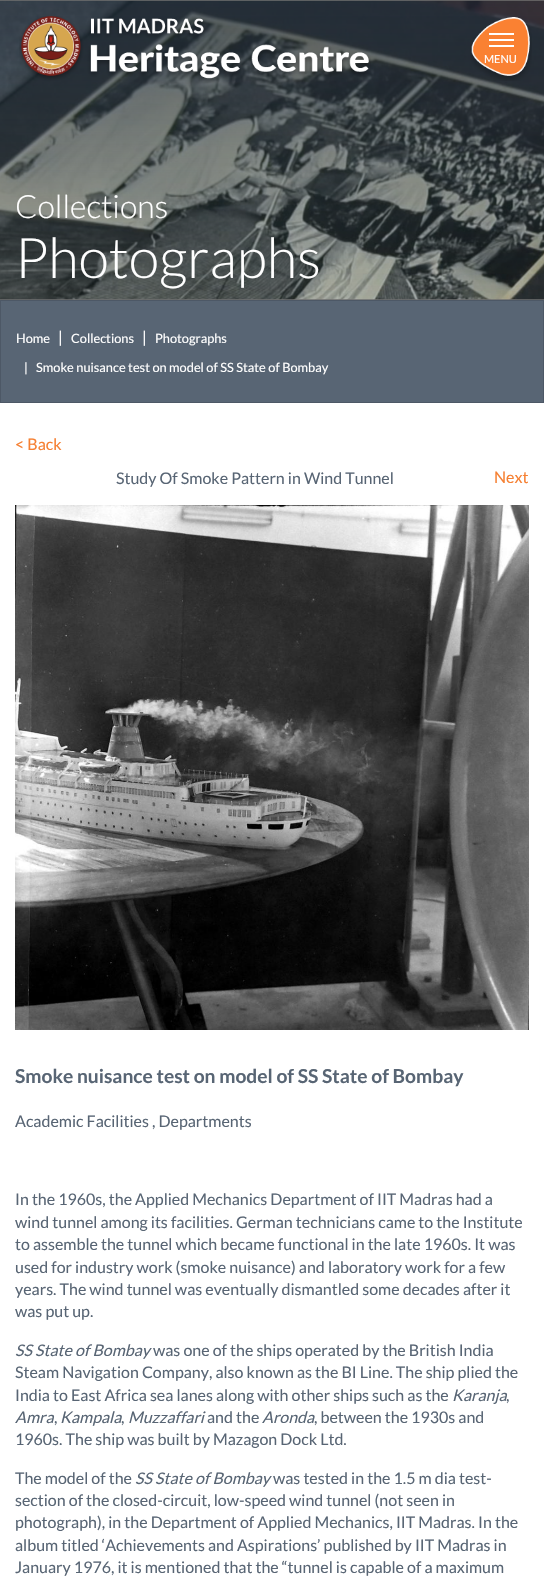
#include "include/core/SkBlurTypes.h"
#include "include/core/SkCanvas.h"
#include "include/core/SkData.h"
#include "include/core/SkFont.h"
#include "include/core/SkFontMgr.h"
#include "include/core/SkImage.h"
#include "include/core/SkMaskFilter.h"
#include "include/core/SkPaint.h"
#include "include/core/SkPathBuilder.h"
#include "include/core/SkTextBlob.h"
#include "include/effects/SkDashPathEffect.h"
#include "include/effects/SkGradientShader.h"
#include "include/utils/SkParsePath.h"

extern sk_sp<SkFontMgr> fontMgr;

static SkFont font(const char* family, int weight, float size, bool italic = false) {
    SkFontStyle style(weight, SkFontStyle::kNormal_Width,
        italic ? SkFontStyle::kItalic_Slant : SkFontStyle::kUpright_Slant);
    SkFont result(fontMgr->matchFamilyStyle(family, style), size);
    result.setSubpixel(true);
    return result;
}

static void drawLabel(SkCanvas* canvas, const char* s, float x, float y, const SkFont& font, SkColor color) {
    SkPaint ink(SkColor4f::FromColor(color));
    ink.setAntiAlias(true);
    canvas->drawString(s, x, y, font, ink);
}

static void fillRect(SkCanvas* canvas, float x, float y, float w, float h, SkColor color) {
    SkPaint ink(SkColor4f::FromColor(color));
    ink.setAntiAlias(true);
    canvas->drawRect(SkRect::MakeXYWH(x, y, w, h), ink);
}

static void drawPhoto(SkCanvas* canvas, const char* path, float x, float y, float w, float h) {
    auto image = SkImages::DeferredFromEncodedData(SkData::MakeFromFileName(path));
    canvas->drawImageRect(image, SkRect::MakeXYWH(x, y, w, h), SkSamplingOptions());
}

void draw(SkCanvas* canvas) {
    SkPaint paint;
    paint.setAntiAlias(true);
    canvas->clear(0xFFFFFFFF);
    drawPhoto(canvas, "assets/img3.png", 0, 0, 544, 300);
    drawPhoto(canvas, "assets/img4.png", 0, 0, 544, 300);
    drawPhoto(canvas, "assets/img1.png", 19, 16, 352, 67);
    drawPhoto(canvas, "assets/img2.png", 470, 17, 62, 64);
    fillRect(canvas, 489, 33, 25, 2, 0xFFFFFFFF);
    fillRect(canvas, 489, 39, 25, 2, 0xFFFFFFFF);
    fillRect(canvas, 489, 45, 25, 2, 0xFFFFFFFF);
    SkFont font1 = font("Lato", 400, 11);
    drawLabel(canvas, "MENU", 484, 63, font1, 0xFFFFFFFF);
    SkFont font2 = font("Lato", 300, 32);
    drawLabel(canvas, "Collections", 15, 218, font2, 0xFFFFFFFF);
    SkFont font3 = font("Lato", 300, 56);
    drawLabel(canvas, "Photographs", 15, 278, font3, 0xFFFFFFFF);
    paint.setColor(0xFF586574);
    canvas->drawRect(SkRect::MakeXYWH(0.5f, 300.5f, 543, 102), paint);
    paint.setStroke(true);
    paint.setStrokeWidth(1);
    paint.setColor(0xFF4D5866);
    canvas->drawRect(SkRect::MakeXYWH(0.5f, 300.5f, 543, 102), paint);
    SkFont font4 = font("Lato", 400, 12.8f);
    drawLabel(canvas, "Home", 16, 343, font4, 0xFFFFFFFF);
    SkFont font5 = font("Lato", 400, 16);
    drawLabel(canvas, "|", 58, 343, font5, 0xFFFFFFFF);
    drawLabel(canvas, "Collections", 71, 343, font4, 0xFFFFFFFF);
    drawLabel(canvas, "|", 142, 343, font5, 0xFFFFFFFF);
    drawLabel(canvas, "Photographs", 155, 343, font4, 0xFFFFFFFF);
    drawLabel(canvas, "|", 24, 372, font4, 0xFFFFFFFF);
    drawLabel(canvas, "Smoke nuisance test on model of SS State of Bombay", 36, 372, font4, 0xFFFFFFFF);
    drawLabel(canvas, "< Back", 15, 450, font5, 0xFFF68032);
    drawLabel(canvas, "Study Of Smoke Pattern in Wind Tunnel", 116, 484, font5, 0xFF586574);
    drawLabel(canvas, "Next", 494, 483, font5, 0xFFF68032);
    drawPhoto(canvas, "assets/img5.png", 15, 505, 514, 525);
    SkFont font6 = font("Lato", 700, 19.2f);
    drawLabel(canvas, "Smoke nuisance test on model of SS State of Bombay", 15, 1083, font6, 0xFF586574);
    drawLabel(canvas, "Academic Facilities , Departments", 15, 1127, font5, 0xFF586574);
    drawLabel(canvas, "In the 1960s, the Applied Mechanics Department of IIT Madras had a", 15, 1205, font5, 0xFF586574);
    drawLabel(canvas, "wind tunnel among its facilities. German technicians came to the Institute", 15, 1228, font5, 0xFF586574);
    drawLabel(canvas, "to assemble the tunnel which became functional in the late 1960s. It was", 15, 1250, font5, 0xFF586574);
    drawLabel(canvas, "used for industry work (smoke nuisance) and laboratory work for a few", 15, 1273, font5, 0xFF586574);
    drawLabel(canvas, "years. The wind tunnel was eventually dismantled some decades after it", 15, 1295, font5, 0xFF586574);
    drawLabel(canvas, "was put up.", 15, 1317, font5, 0xFF586574);
    SkFont font7 = font("Lato", 400, 16, true);
    drawLabel(canvas, "SS State of Bombay", 15, 1356, font7, 0xFF586574);
    drawLabel(canvas, "was one of the ships operated by the British India", 153, 1356, font5, 0xFF586574);
    drawLabel(canvas, "Steam Navigation Company, also known as the BI Line. The ship plied the", 15, 1378, font5, 0xFF586574);
    drawLabel(canvas, "India to East Africa sea lanes along with other ships such as the", 15, 1401, font5, 0xFF586574);
    drawLabel(canvas, "Karanja", 452, 1401, font7, 0xFF586574);
    drawLabel(canvas, ",", 506, 1401, font5, 0xFF586574);
    drawLabel(canvas, "Amra", 15, 1423, font7, 0xFF586574);
    drawLabel(canvas, ",", 54, 1423, font5, 0xFF586574);
    drawLabel(canvas, "Kampala", 60, 1423, font7, 0xFF586574);
    drawLabel(canvas, ",", 121, 1423, font5, 0xFF586574);
    drawLabel(canvas, "Muzzaffari", 128, 1423, font7, 0xFF586574);
    drawLabel(canvas, "and the", 207, 1423, font5, 0xFF586574);
    drawLabel(canvas, "Aronda", 262, 1423, font7, 0xFF586574);
    drawLabel(canvas, ", between the 1930s and", 314, 1423, font5, 0xFF586574);
    drawLabel(canvas, "1960s. The ship was built by Mazagon Dock Ltd.", 15, 1445, font5, 0xFF586574);
    drawLabel(canvas, "The model of the", 15, 1484, font5, 0xFF586574);
    drawLabel(canvas, "SS State of Bombay", 135, 1484, font7, 0xFF586574);
    drawLabel(canvas, "was tested in the 1.5 m dia test-", 273, 1484, font5, 0xFF586574);
    drawLabel(canvas, "section of the closed-circuit, low-speed wind tunnel (not seen in", 15, 1506, font5, 0xFF586574);
    drawLabel(canvas, "photograph), in the Department of Applied Mechanics, IIT Madras. In the", 15, 1528, font5, 0xFF586574);
    drawLabel(canvas, "album titled ‘Achievements and Aspirations’ published by IIT Madras in", 15, 1551, font5, 0xFF586574);
    drawLabel(canvas, "January 1976, it is mentioned that the “tunnel is capable of a maximum", 15, 1573, font5, 0xFF586574);
}
